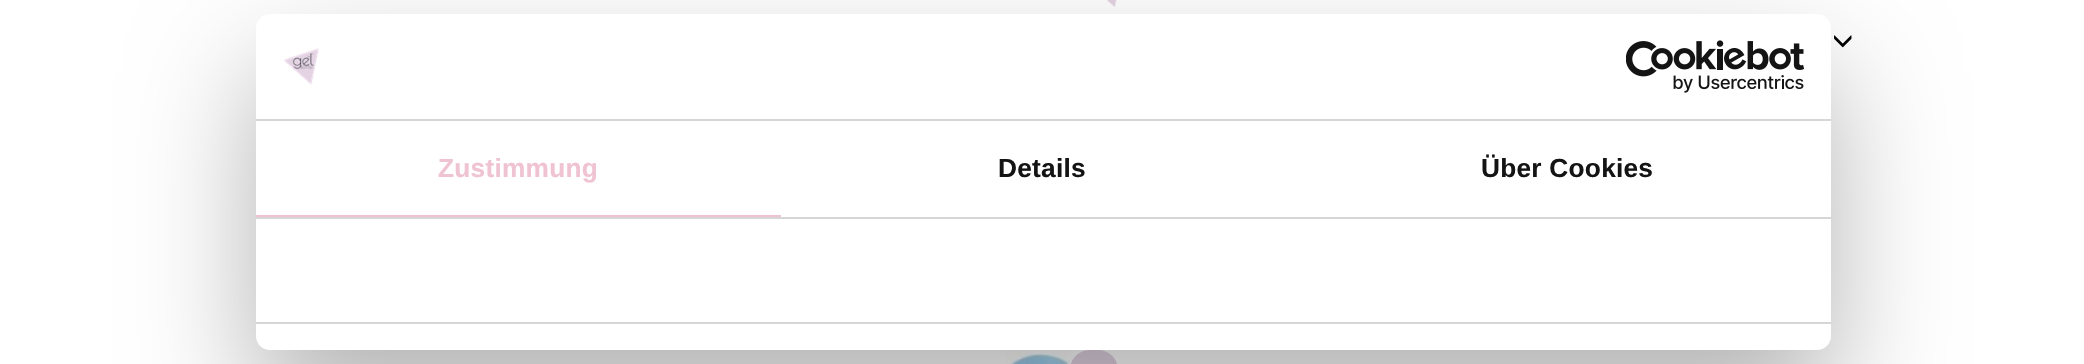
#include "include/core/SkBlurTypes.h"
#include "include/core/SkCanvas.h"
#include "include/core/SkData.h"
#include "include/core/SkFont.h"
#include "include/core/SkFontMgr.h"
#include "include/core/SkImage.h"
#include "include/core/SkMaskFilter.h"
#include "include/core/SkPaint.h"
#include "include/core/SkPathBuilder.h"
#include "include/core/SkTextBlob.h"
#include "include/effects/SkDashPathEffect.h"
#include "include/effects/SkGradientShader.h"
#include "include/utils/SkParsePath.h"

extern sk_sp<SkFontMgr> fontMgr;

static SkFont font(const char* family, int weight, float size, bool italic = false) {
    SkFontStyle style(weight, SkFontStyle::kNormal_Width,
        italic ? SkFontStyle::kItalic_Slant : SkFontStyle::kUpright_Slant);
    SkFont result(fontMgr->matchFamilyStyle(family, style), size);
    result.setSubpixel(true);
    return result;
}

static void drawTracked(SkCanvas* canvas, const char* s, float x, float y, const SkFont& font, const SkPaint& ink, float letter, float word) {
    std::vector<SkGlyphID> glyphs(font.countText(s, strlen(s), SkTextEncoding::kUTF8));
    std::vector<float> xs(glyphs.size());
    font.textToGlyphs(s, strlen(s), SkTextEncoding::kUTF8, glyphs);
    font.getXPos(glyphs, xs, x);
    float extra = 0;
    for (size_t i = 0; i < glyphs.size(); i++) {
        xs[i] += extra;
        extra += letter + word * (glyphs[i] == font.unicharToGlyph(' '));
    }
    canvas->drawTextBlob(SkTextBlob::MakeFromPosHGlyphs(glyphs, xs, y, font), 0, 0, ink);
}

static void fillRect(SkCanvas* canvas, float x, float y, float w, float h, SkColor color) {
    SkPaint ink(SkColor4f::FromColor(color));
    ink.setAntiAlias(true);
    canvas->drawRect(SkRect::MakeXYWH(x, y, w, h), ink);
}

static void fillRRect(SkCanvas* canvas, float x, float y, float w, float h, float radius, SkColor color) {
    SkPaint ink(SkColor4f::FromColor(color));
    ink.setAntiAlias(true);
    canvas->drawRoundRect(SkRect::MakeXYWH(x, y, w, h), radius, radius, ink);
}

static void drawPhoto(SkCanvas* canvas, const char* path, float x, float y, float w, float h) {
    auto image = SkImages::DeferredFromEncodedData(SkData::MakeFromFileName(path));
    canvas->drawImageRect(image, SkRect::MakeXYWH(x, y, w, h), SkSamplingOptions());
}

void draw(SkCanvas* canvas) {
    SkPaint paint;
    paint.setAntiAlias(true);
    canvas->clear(0xFFFFFFFF);
    drawPhoto(canvas, "assets/img1.png", 1107, 0, 10, 7);
    drawPhoto(canvas, "assets/img2.png", 1834, 35, 18, 13);
    drawPhoto(canvas, "assets/img3.png", 1006, 350, 66, 14);
    paint.setColor(0xFFE1D3E2);
    canvas->drawRoundRect(SkRect::MakeXYWH(1069, 349, 50, 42), 25, 25, paint);
    paint.setStroke(true);
    paint.setStrokeWidth(2);
    paint.setColor(0xFFFFFFFF);
    canvas->drawRoundRect(SkRect::MakeXYWH(1069, 349, 50, 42), 25, 25, paint);
    paint.setStroke(false);
    paint.setColor(0x4D000000);
    paint.setMaskFilter(SkMaskFilter::MakeBlur(kNormal_SkBlurStyle, 59.5f));
    canvas->drawRoundRect(SkRect::MakeXYWH(256, 70, 1575, 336), 14, 14, paint);
    paint.setMaskFilter(nullptr);
    fillRRect(canvas, 256, 14, 1575, 336, 14, 0xFFFFFFFF);
    fillRect(canvas, 256, 119, 1575, 2, 0xFFD6D6D6);
    drawPhoto(canvas, "assets/img4.png", 283, 48, 36, 37);
    drawPhoto(canvas, "assets/img5.png", 1626, 40, 178, 53);
    fillRect(canvas, 256, 217, 1575, 2, 0xFFD6D6D6);
    fillRect(canvas, 256, 215, 525, 2, 0xFFF0C3D2);
    SkFont font1 = font("Liberation Sans", 700, 26.25f);
    paint.setColor(0xFFF0C3D2);
    drawTracked(canvas, "Zustimmung", 438, 177, font1, paint, 0.25f, 0);
    paint.setColor(0xFF141414);
    drawTracked(canvas, "Details", 998, 177, font1, paint, 0.25f, 0);
    drawTracked(canvas, "Über Cookies", 1481, 177, font1, paint, 0.25f, 0);
    fillRect(canvas, 256, 322, 1575, 2, 0xFFD6D6D6);
}
